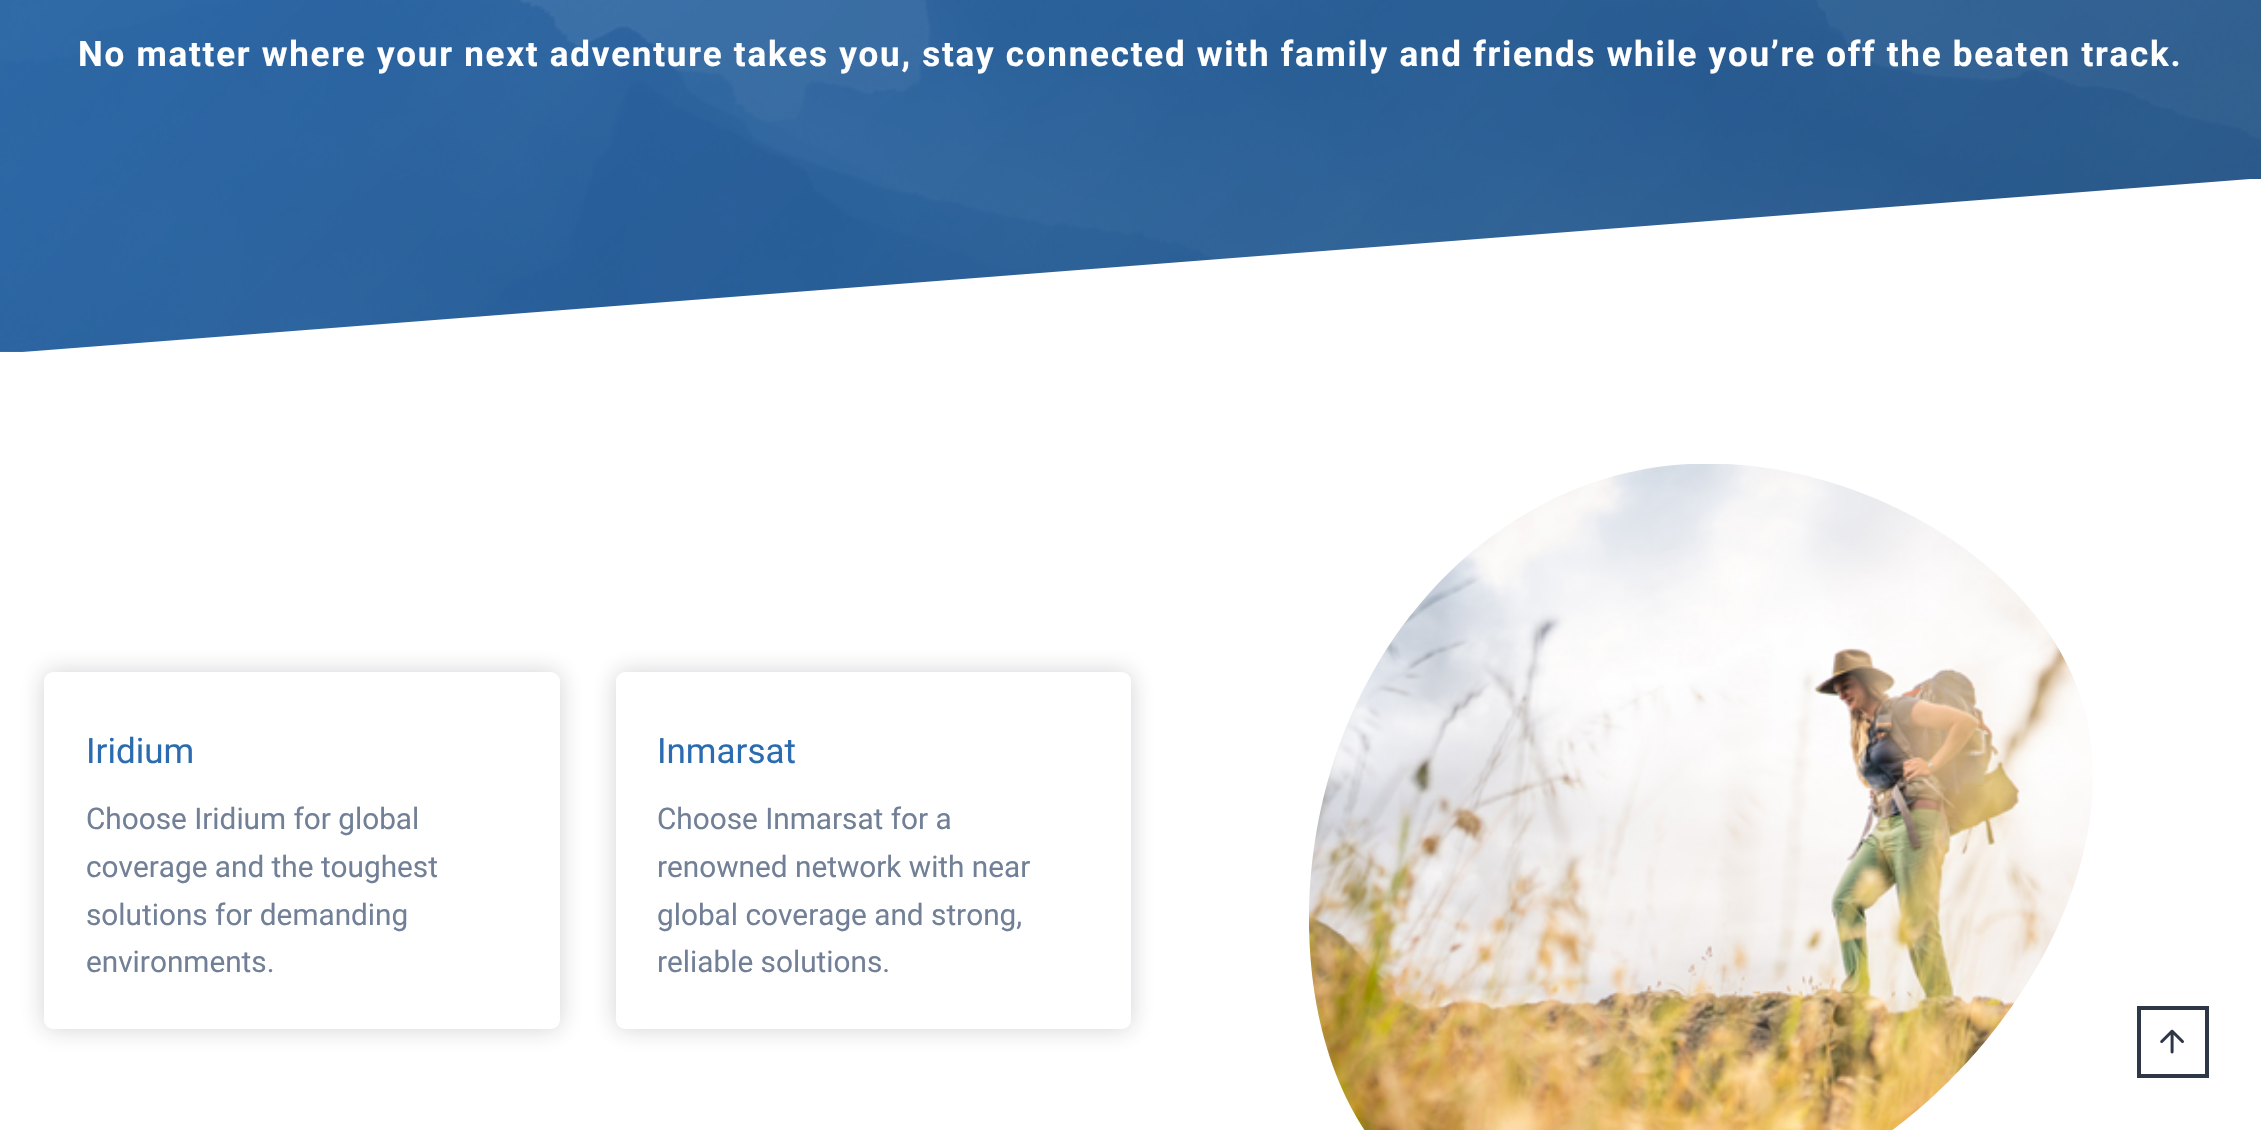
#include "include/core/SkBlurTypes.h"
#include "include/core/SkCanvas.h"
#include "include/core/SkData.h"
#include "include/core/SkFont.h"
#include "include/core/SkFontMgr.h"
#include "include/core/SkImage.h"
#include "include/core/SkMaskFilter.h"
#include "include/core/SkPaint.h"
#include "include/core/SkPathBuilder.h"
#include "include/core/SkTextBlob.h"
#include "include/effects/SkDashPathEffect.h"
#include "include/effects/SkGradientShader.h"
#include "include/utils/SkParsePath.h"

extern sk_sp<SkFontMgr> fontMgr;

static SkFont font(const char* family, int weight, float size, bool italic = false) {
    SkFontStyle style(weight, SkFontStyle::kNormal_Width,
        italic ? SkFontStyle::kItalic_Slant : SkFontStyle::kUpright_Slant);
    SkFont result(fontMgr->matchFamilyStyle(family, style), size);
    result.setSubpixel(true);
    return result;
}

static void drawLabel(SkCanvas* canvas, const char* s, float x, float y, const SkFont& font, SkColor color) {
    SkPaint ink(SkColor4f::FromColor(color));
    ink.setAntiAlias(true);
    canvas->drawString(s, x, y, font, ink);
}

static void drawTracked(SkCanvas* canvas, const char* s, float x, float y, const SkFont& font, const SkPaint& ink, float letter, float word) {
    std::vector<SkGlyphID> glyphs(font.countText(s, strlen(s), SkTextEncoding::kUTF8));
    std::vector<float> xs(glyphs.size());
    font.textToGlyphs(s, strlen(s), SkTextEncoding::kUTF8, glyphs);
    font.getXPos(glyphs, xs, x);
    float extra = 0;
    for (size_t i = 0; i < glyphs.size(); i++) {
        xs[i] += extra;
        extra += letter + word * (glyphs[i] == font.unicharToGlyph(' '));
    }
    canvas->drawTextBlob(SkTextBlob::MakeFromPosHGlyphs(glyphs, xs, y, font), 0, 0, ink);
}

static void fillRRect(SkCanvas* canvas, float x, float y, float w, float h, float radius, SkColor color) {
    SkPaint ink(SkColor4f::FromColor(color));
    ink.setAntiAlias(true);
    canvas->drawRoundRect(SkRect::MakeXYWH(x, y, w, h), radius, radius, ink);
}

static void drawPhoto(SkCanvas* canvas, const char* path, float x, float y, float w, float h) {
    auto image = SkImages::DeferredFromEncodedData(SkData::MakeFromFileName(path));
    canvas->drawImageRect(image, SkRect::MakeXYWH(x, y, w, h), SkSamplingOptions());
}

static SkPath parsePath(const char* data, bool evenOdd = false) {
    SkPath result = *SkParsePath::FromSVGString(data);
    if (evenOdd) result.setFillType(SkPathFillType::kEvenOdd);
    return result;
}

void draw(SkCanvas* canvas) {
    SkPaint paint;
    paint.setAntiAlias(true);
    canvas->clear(0xFFFFFFFF);
    drawPhoto(canvas, "assets/img1.png", 0, 0, 2261, 352);
    {
        const SkColor colors[] = {0xE62B6CB0, 0xE6215387};
        const float stops[] = {0, 1};
        const SkPoint ends[] = {{392, -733}, {1869, 744}};
        paint.setShader(SkGradientShader::MakeLinear(ends, colors, stops, 2, SkTileMode::kClamp));
        paint.setAlpha(255);
    }
    canvas->drawRect(SkRect::MakeXYWH(0, 0, 2261, 352), paint);
    SkFont font1 = font("Roboto", 700, 35);
    paint.setShader(nullptr);
    paint.setColor(0xFFFFFFFF);
    drawTracked(canvas, "No matter where your next adventure takes you, stay connected with family and friends while you’re off the beaten track.", 78, 66, font1, paint, 1.75f, 0);
    canvas->save();
    canvas->clipRect(SkRect::MakeXYWH(0, 179, 2261, 175));
    canvas->drawPath(parsePath("M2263 178L-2 354H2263Z"), paint);
    canvas->restore();
    paint.setColor(0x331B202C);
    paint.setMaskFilter(SkMaskFilter::MakeBlur(kNormal_SkBlurStyle, 12));
    canvas->drawRoundRect(SkRect::MakeXYWH(44, 672, 516, 357), 9, 9, paint);
    paint.setMaskFilter(nullptr);
    fillRRect(canvas, 44, 672, 516, 357, 9, 0xFFFFFFFF);
    SkFont font2 = font("Roboto", 400, 35);
    drawLabel(canvas, "Iridium", 86, 763, font2, 0xFF2B6CB0);
    SkFont font3 = font("Roboto", 400, 29.75f);
    drawLabel(canvas, "Choose Iridium for global", 86, 829, font3, 0xFF718096);
    drawLabel(canvas, "coverage and the toughest", 86, 877, font3, 0xFF718096);
    drawLabel(canvas, "solutions for demanding", 86, 925, font3, 0xFF718096);
    drawLabel(canvas, "environments.", 86, 972, font3, 0xFF718096);
    paint.setMaskFilter(SkMaskFilter::MakeBlur(kNormal_SkBlurStyle, 12));
    canvas->drawRoundRect(SkRect::MakeXYWH(616, 672, 515, 357), 9, 9, paint);
    paint.setMaskFilter(nullptr);
    fillRRect(canvas, 616, 672, 515, 357, 9, 0xFFFFFFFF);
    drawLabel(canvas, "Inmarsat", 657, 763, font2, 0xFF2B6CB0);
    drawLabel(canvas, "Choose Inmarsat for a", 657, 829, font3, 0xFF718096);
    drawLabel(canvas, "renowned network with near", 657, 877, font3, 0xFF718096);
    drawLabel(canvas, "global coverage and strong,", 657, 925, font3, 0xFF718096);
    drawLabel(canvas, "reliable solutions.", 657, 972, font3, 0xFF718096);
    drawPhoto(canvas, "assets/img2.png", 1309, 464, 784, 666);
    paint.setStroke(true);
    paint.setStrokeWidth(4);
    paint.setColor(0xFF2D3748);
    canvas->drawRect(SkRect::MakeXYWH(2139, 1008, 68, 68), paint);
    drawPhoto(canvas, "assets/img3.png", 2160, 1029, 24, 25);
}
